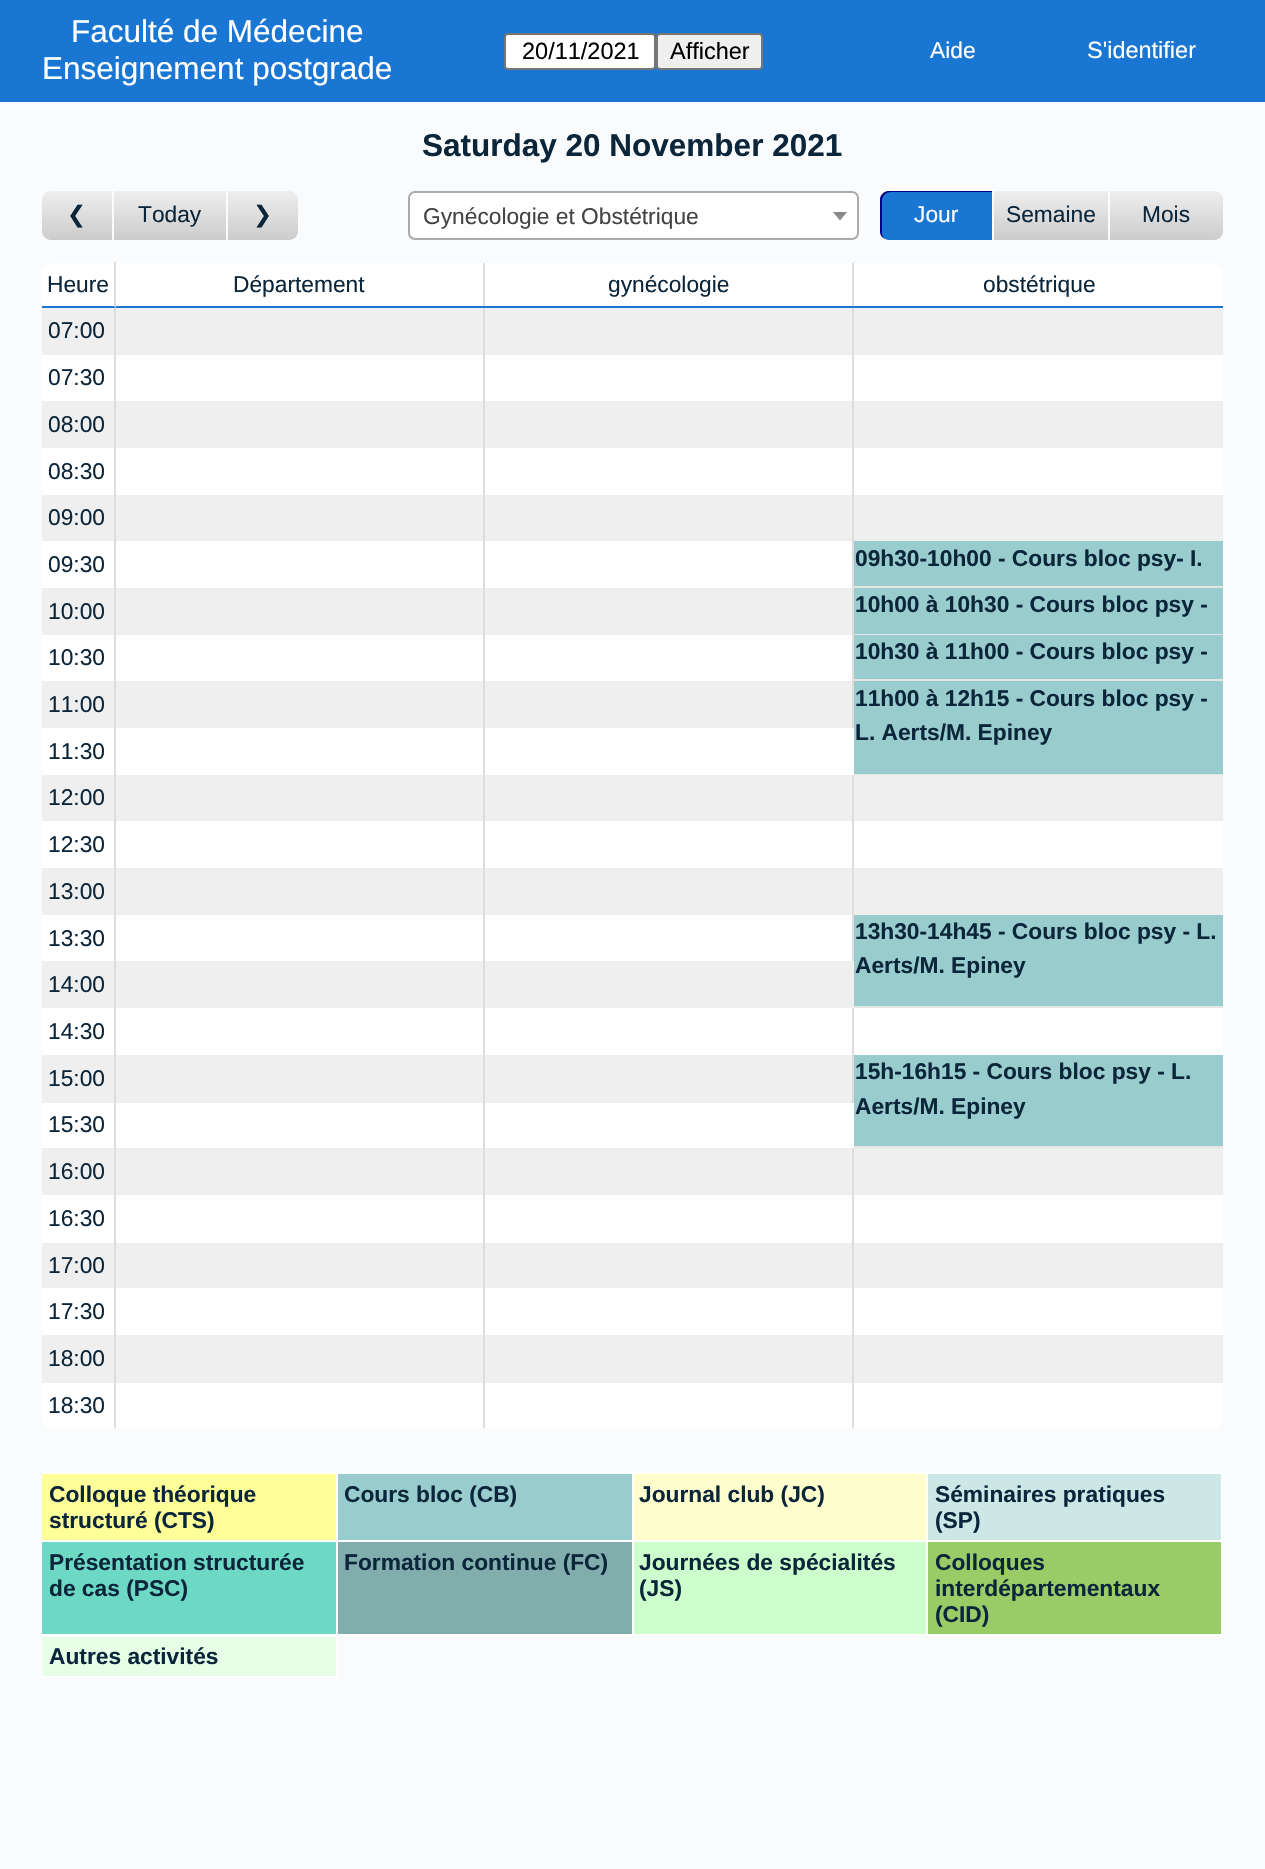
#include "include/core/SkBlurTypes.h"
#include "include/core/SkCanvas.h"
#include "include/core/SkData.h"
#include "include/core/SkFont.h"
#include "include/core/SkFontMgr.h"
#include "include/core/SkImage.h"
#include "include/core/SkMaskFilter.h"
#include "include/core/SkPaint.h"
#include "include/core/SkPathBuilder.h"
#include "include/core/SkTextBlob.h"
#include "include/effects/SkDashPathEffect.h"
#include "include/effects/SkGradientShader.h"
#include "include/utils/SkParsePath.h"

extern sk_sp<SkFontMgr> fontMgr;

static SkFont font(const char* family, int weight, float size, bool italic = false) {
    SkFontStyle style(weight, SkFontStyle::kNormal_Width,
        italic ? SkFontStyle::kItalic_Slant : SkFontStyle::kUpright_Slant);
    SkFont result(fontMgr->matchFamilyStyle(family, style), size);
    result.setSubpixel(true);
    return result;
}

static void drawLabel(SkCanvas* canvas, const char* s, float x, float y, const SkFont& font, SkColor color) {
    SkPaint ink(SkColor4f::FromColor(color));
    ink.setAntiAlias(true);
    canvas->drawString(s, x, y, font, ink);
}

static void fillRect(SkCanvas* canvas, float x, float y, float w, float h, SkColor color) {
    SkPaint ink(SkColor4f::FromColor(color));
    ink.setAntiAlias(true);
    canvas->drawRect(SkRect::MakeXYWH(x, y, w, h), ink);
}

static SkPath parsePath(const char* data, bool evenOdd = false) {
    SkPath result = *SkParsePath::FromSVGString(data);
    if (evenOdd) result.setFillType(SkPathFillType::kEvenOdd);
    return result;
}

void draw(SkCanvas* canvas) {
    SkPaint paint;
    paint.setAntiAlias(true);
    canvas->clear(0xFFF9FBFC);
    fillRect(canvas, 0, 0, 1265, 102, 0xFF1976D2);
    SkFont font1 = font("Liberation Sans", 400, 31.5f);
    drawLabel(canvas, "Faculté de Médecine", 71, 42, font1, 0xFFFFFFFF);
    drawLabel(canvas, "Enseignement postgrade", 42, 79, font1, 0xFFFFFFFF);
    paint.setColor(0xFFFFFFFF);
    canvas->drawRoundRect(SkRect::MakeXYWH(505, 34, 150, 35), 3, 3, paint);
    paint.setStroke(true);
    paint.setStrokeWidth(2);
    paint.setColor(0xFF767676);
    canvas->drawRoundRect(SkRect::MakeXYWH(505, 34, 150, 35), 3, 3, paint);
    SkFont font2 = font("Liberation Sans", 400, 23.5f);
    drawLabel(canvas, "20/11/2021", 522, 59, font2, 0xFF000000);
    paint.setStroke(false);
    paint.setColor(0xFFEFEFEF);
    canvas->drawRoundRect(SkRect::MakeXYWH(657, 34, 105, 35), 3, 3, paint);
    paint.setStroke(true);
    paint.setColor(0xFF767676);
    canvas->drawRoundRect(SkRect::MakeXYWH(657, 34, 105, 35), 3, 3, paint);
    drawLabel(canvas, "Afficher", 670, 59, font2, 0xFF000000);
    SkFont font3 = font("Liberation Sans", 400, 22.75f);
    drawLabel(canvas, "Aide", 930, 58, font3, 0xFFFFFFFF);
    drawLabel(canvas, "S'identifier", 1087, 58, font2, 0xFFFFFFFF);
    SkFont font4 = font("Liberation Sans", 700, 31.5f);
    drawLabel(canvas, "Saturday 20 November 2021", 422, 156, font4, 0xFF0B263B);
    paint.setStroke(false);
    {
        const SkColor colors[] = {0xFFEEEEEE, 0xFFCCCCCC};
        const float stops[] = {0, 1};
        const SkPoint ends[] = {{77, 191}, {77, 240}};
        paint.setShader(SkGradientShader::MakeLinear(ends, colors, stops, 2, SkTileMode::kClamp));
        paint.setAlpha(255);
    }
    canvas->drawPath(parsePath("M51 191H114V240H51C46 240 42 236 42 231V200C42 195 46 191 51 191Z"), paint);
    fillRect(canvas, 112, 191, 2, 49, 0xFFF9FBFC);
    SkFont font5 = font("DejaVu Sans", 400, 22.75f);
    drawLabel(canvas, "❮", 67, 222, font5, 0xFF0B263B);
    {
        const SkColor colors[] = {0xFFEEEEEE, 0xFFCCCCCC};
        const float stops[] = {0, 1};
        const SkPoint ends[] = {{170, 191}, {170, 240}};
        paint.setShader(SkGradientShader::MakeLinear(ends, colors, stops, 2, SkTileMode::kClamp));
        paint.setAlpha(255);
    }
    canvas->drawRect(SkRect::MakeXYWH(114, 191, 112, 49), paint);
    drawLabel(canvas, "Today", 138, 222, font3, 0xFF0B263B);
    {
        const SkColor colors[] = {0xFFEEEEEE, 0xFFCCCCCC};
        const float stops[] = {0, 1};
        const SkPoint ends[] = {{263, 191}, {263, 240}};
        paint.setShader(SkGradientShader::MakeLinear(ends, colors, stops, 2, SkTileMode::kClamp));
        paint.setAlpha(255);
    }
    canvas->drawPath(parsePath("M228 191H289C294 191 298 195 298 200V231C298 236 294 240 289 240H228Z"), paint);
    drawLabel(canvas, "❯", 253, 222, font5, 0xFF0B263B);
    paint.setShader(nullptr);
    paint.setColor(0xFFFFFFFF);
    canvas->drawRoundRect(SkRect::MakeXYWH(409, 192, 449, 47), 6, 6, paint);
    paint.setStroke(true);
    paint.setColor(0xFFAAAAAA);
    canvas->drawRoundRect(SkRect::MakeXYWH(409, 192, 449, 47), 6, 6, paint);
    drawLabel(canvas, "Gynécologie et Obstétrique", 423, 224, font3, 0xFF444444);
    paint.setStroke(false);
    paint.setColor(0xFF888888);
    canvas->drawPath(parsePath("M833 212H847L840 220.5Z"), paint);
    paint.setColor(0xFF1976D2);
    canvas->drawPath(parsePath("M889 191H994V240H889C884 240 880 236 880 231V200C880 195 884 191 889 191Z"), paint);
    paint.setColor(0xFF00008B);
    canvas->drawPath(parsePath("M891 192H992V191H889C884 191 880 195 880 200V231C880 234 881 237 884 238C883 237 882 235 882 233V201C882 196 886 192 891 192Z"), paint);
    fillRect(canvas, 992, 191, 2, 49, 0xFFF9FBFC);
    drawLabel(canvas, "Jour", 914, 222, font3, 0xFFFFFFFF);
    {
        const SkColor colors[] = {0xFFEEEEEE, 0xFFCCCCCC};
        const float stops[] = {0, 1};
        const SkPoint ends[] = {{1051, 191}, {1051, 240}};
        paint.setShader(SkGradientShader::MakeLinear(ends, colors, stops, 2, SkTileMode::kClamp));
        paint.setAlpha(255);
    }
    canvas->drawRect(SkRect::MakeXYWH(994, 191, 114, 49), paint);
    drawLabel(canvas, "Semaine", 1006, 222, font3, 0xFF0B263B);
    {
        const SkColor colors[] = {0xFFEEEEEE, 0xFFCCCCCC};
        const float stops[] = {0, 1};
        const SkPoint ends[] = {{1166, 191}, {1166, 240}};
        paint.setShader(SkGradientShader::MakeLinear(ends, colors, stops, 2, SkTileMode::kClamp));
        paint.setAlpha(255);
    }
    canvas->drawPath(parsePath("M1110 191H1214C1219 191 1223 195 1223 200V231C1223 236 1219 240 1214 240H1110Z"), paint);
    drawLabel(canvas, "Mois", 1142, 222, font3, 0xFF0B263B);
    paint.setShader(nullptr);
    paint.setColor(0xFFFFFFFF);
    canvas->drawPath(parsePath("M51 263H114V306H42V272C42 267 46 263 51 263Z"), paint);
    paint.setColor(0xFFDDDDDD);
    canvas->drawPath(parsePath("M116 262V308L114 306V262Z"), paint);
    paint.setColor(0xFF1976D2);
    canvas->drawPath(parsePath("M116 308L114 306H42V308Z"), paint);
    drawLabel(canvas, "Heure", 47, 292, font3, 0xFF0B263B);
    fillRect(canvas, 116, 263, 367, 43, 0xFFFFFFFF);
    fillRect(canvas, 483, 263, 2, 1165, 0xFFDDDDDD);
    fillRect(canvas, 852, 263, 2, 465, 0xFFDDDDDD);
    fillRect(canvas, 116, 306, 1107, 2, 0xFF1976D2);
    drawLabel(canvas, "Département", 233, 292, font3, 0xFF0B263B);
    fillRect(canvas, 485, 263, 367, 43, 0xFFFFFFFF);
    drawLabel(canvas, "gynécologie", 608, 292, font3, 0xFF0B263B);
    paint.setColor(0xFFFFFFFF);
    canvas->drawPath(parsePath("M854 263H1214C1219 263 1223 267 1223 272V306H854Z"), paint);
    drawLabel(canvas, "obstétrique", 983, 292, font3, 0xFF0B263B);
    fillRect(canvas, 42, 308, 72, 47, 0xFFEFEFEF);
    fillRect(canvas, 114, 308, 2, 1120, 0xFFDDDDDD);
    drawLabel(canvas, "07:00", 48, 338, font3, 0xFF0B263B);
    fillRect(canvas, 116, 308, 367, 47, 0xFFEFEFEF);
    fillRect(canvas, 485, 308, 367, 47, 0xFFEFEFEF);
    fillRect(canvas, 854, 308, 369, 47, 0xFFEFEFEF);
    fillRect(canvas, 42, 355, 72, 46, 0xFFFFFFFF);
    drawLabel(canvas, "07:30", 48, 385, font3, 0xFF0B263B);
    fillRect(canvas, 116, 355, 367, 46, 0xFFFFFFFF);
    fillRect(canvas, 485, 355, 367, 46, 0xFFFFFFFF);
    fillRect(canvas, 854, 355, 369, 46, 0xFFFFFFFF);
    fillRect(canvas, 42, 401, 72, 47, 0xFFEFEFEF);
    drawLabel(canvas, "08:00", 48, 432, font3, 0xFF0B263B);
    fillRect(canvas, 116, 401, 367, 47, 0xFFEFEFEF);
    fillRect(canvas, 485, 401, 367, 47, 0xFFEFEFEF);
    fillRect(canvas, 854, 401, 369, 47, 0xFFEFEFEF);
    fillRect(canvas, 42, 448, 72, 47, 0xFFFFFFFF);
    drawLabel(canvas, "08:30", 48, 479, font3, 0xFF0B263B);
    fillRect(canvas, 116, 448, 367, 47, 0xFFFFFFFF);
    fillRect(canvas, 485, 448, 367, 47, 0xFFFFFFFF);
    fillRect(canvas, 854, 448, 369, 47, 0xFFFFFFFF);
    fillRect(canvas, 42, 495, 72, 46, 0xFFEFEFEF);
    drawLabel(canvas, "09:00", 48, 525, font3, 0xFF0B263B);
    fillRect(canvas, 116, 495, 367, 46, 0xFFEFEFEF);
    fillRect(canvas, 485, 495, 367, 46, 0xFFEFEFEF);
    fillRect(canvas, 854, 495, 369, 46, 0xFFEFEFEF);
    fillRect(canvas, 42, 541, 72, 47, 0xFFFFFFFF);
    drawLabel(canvas, "09:30", 48, 572, font3, 0xFF0B263B);
    fillRect(canvas, 116, 541, 367, 47, 0xFFFFFFFF);
    fillRect(canvas, 485, 541, 367, 47, 0xFFFFFFFF);
    fillRect(canvas, 854, 541, 369, 45, 0xFF99CCCC);
    fillRect(canvas, 854, 586, 369, 2, 0xFFE4E4E4);
    SkFont font6 = font("Liberation Sans", 700, 22.75f);
    drawLabel(canvas, "09h30-10h00 - Cours bloc psy- I.", 855, 566, font6, 0xFF0B263B);
    fillRect(canvas, 42, 588, 72, 47, 0xFFEFEFEF);
    drawLabel(canvas, "10:00", 48, 619, font3, 0xFF0B263B);
    fillRect(canvas, 116, 588, 367, 47, 0xFFEFEFEF);
    fillRect(canvas, 485, 588, 367, 47, 0xFFEFEFEF);
    fillRect(canvas, 854, 588, 369, 46, 0xFF99CCCC);
    fillRect(canvas, 854, 634, 369, 1, 0xFFE4E4E4);
    drawLabel(canvas, "10h00 à 10h30 - Cours bloc psy -", 855, 612, font6, 0xFF0B263B);
    fillRect(canvas, 42, 635, 72, 46, 0xFFFFFFFF);
    drawLabel(canvas, "10:30", 48, 665, font3, 0xFF0B263B);
    fillRect(canvas, 116, 635, 367, 46, 0xFFFFFFFF);
    fillRect(canvas, 485, 635, 367, 46, 0xFFFFFFFF);
    fillRect(canvas, 854, 635, 369, 44, 0xFF99CCCC);
    fillRect(canvas, 854, 679, 369, 2, 0xFFE4E4E4);
    drawLabel(canvas, "10h30 à 11h00 - Cours bloc psy -", 855, 659, font6, 0xFF0B263B);
    fillRect(canvas, 42, 681, 72, 47, 0xFFEFEFEF);
    drawLabel(canvas, "11:00", 48, 712, font3, 0xFF0B263B);
    fillRect(canvas, 116, 681, 367, 47, 0xFFEFEFEF);
    fillRect(canvas, 485, 681, 367, 47, 0xFFEFEFEF);
    fillRect(canvas, 854, 681, 369, 93, 0xFF99CCCC);
    fillRect(canvas, 854, 774, 369, 1, 0xFFE4E4E4);
    drawLabel(canvas, "11h00 à 12h15 - Cours bloc psy -", 855, 706, font6, 0xFF0B263B);
    drawLabel(canvas, "L. Aerts/M. Epiney", 855, 740, font6, 0xFF0B263B);
    fillRect(canvas, 42, 728, 72, 47, 0xFFFFFFFF);
    drawLabel(canvas, "11:30", 48, 759, font3, 0xFF0B263B);
    fillRect(canvas, 116, 728, 367, 47, 0xFFFFFFFF);
    fillRect(canvas, 485, 728, 369, 47, 0xFFFFFFFF);
    fillRect(canvas, 42, 775, 72, 46, 0xFFEFEFEF);
    drawLabel(canvas, "12:00", 48, 805, font3, 0xFF0B263B);
    fillRect(canvas, 116, 775, 367, 46, 0xFFEFEFEF);
    fillRect(canvas, 485, 775, 367, 46, 0xFFEFEFEF);
    fillRect(canvas, 852, 775, 2, 186, 0xFFDDDDDD);
    fillRect(canvas, 854, 775, 369, 46, 0xFFEFEFEF);
    fillRect(canvas, 42, 821, 72, 47, 0xFFFFFFFF);
    drawLabel(canvas, "12:30", 48, 852, font3, 0xFF0B263B);
    fillRect(canvas, 116, 821, 367, 47, 0xFFFFFFFF);
    fillRect(canvas, 485, 821, 367, 47, 0xFFFFFFFF);
    fillRect(canvas, 854, 821, 369, 47, 0xFFFFFFFF);
    fillRect(canvas, 42, 868, 72, 47, 0xFFEFEFEF);
    drawLabel(canvas, "13:00", 48, 899, font3, 0xFF0B263B);
    fillRect(canvas, 116, 868, 367, 47, 0xFFEFEFEF);
    fillRect(canvas, 485, 868, 367, 47, 0xFFEFEFEF);
    fillRect(canvas, 854, 868, 369, 47, 0xFFEFEFEF);
    fillRect(canvas, 42, 915, 72, 46, 0xFFFFFFFF);
    drawLabel(canvas, "13:30", 48, 946, font3, 0xFF0B263B);
    fillRect(canvas, 116, 915, 367, 46, 0xFFFFFFFF);
    fillRect(canvas, 485, 915, 367, 46, 0xFFFFFFFF);
    fillRect(canvas, 854, 915, 369, 91, 0xFF99CCCC);
    fillRect(canvas, 854, 1006, 369, 2, 0xFFE4E4E4);
    drawLabel(canvas, "13h30-14h45 - Cours bloc psy - L.", 855, 939, font6, 0xFF0B263B);
    drawLabel(canvas, "Aerts/M. Epiney", 855, 973, font6, 0xFF0B263B);
    fillRect(canvas, 42, 961, 72, 47, 0xFFEFEFEF);
    drawLabel(canvas, "14:00", 48, 992, font3, 0xFF0B263B);
    fillRect(canvas, 116, 961, 367, 47, 0xFFEFEFEF);
    fillRect(canvas, 485, 961, 369, 47, 0xFFEFEFEF);
    fillRect(canvas, 42, 1008, 72, 47, 0xFFFFFFFF);
    drawLabel(canvas, "14:30", 48, 1039, font3, 0xFF0B263B);
    fillRect(canvas, 116, 1008, 367, 47, 0xFFFFFFFF);
    fillRect(canvas, 485, 1008, 367, 47, 0xFFFFFFFF);
    fillRect(canvas, 852, 1008, 2, 95, 0xFFDDDDDD);
    fillRect(canvas, 854, 1008, 369, 47, 0xFFFFFFFF);
    fillRect(canvas, 42, 1055, 72, 48, 0xFFEFEFEF);
    drawLabel(canvas, "15:00", 48, 1086, font3, 0xFF0B263B);
    fillRect(canvas, 116, 1055, 367, 48, 0xFFEFEFEF);
    fillRect(canvas, 485, 1055, 367, 48, 0xFFEFEFEF);
    fillRect(canvas, 854, 1055, 369, 91, 0xFF99CCCC);
    fillRect(canvas, 854, 1146, 369, 2, 0xFFE4E4E4);
    drawLabel(canvas, "15h-16h15 - Cours bloc psy - L.", 855, 1079, font6, 0xFF0B263B);
    drawLabel(canvas, "Aerts/M. Epiney", 855, 1114, font6, 0xFF0B263B);
    fillRect(canvas, 42, 1103, 72, 45, 0xFFFFFFFF);
    drawLabel(canvas, "15:30", 48, 1132, font3, 0xFF0B263B);
    fillRect(canvas, 116, 1103, 367, 45, 0xFFFFFFFF);
    fillRect(canvas, 485, 1103, 369, 45, 0xFFFFFFFF);
    fillRect(canvas, 42, 1148, 72, 47, 0xFFEFEFEF);
    drawLabel(canvas, "16:00", 48, 1179, font3, 0xFF0B263B);
    fillRect(canvas, 116, 1148, 367, 47, 0xFFEFEFEF);
    fillRect(canvas, 485, 1148, 367, 47, 0xFFEFEFEF);
    fillRect(canvas, 852, 1148, 2, 280, 0xFFDDDDDD);
    fillRect(canvas, 854, 1148, 369, 47, 0xFFEFEFEF);
    fillRect(canvas, 42, 1195, 72, 48, 0xFFFFFFFF);
    drawLabel(canvas, "16:30", 48, 1226, font3, 0xFF0B263B);
    fillRect(canvas, 116, 1195, 367, 48, 0xFFFFFFFF);
    fillRect(canvas, 485, 1195, 367, 48, 0xFFFFFFFF);
    fillRect(canvas, 854, 1195, 369, 48, 0xFFFFFFFF);
    fillRect(canvas, 42, 1243, 72, 45, 0xFFEFEFEF);
    drawLabel(canvas, "17:00", 48, 1273, font3, 0xFF0B263B);
    fillRect(canvas, 116, 1243, 367, 45, 0xFFEFEFEF);
    fillRect(canvas, 485, 1243, 367, 45, 0xFFEFEFEF);
    fillRect(canvas, 854, 1243, 369, 45, 0xFFEFEFEF);
    fillRect(canvas, 42, 1288, 72, 47, 0xFFFFFFFF);
    drawLabel(canvas, "17:30", 48, 1319, font3, 0xFF0B263B);
    fillRect(canvas, 116, 1288, 367, 47, 0xFFFFFFFF);
    fillRect(canvas, 485, 1288, 367, 47, 0xFFFFFFFF);
    fillRect(canvas, 854, 1288, 369, 47, 0xFFFFFFFF);
    fillRect(canvas, 42, 1335, 72, 48, 0xFFEFEFEF);
    drawLabel(canvas, "18:00", 48, 1366, font3, 0xFF0B263B);
    fillRect(canvas, 116, 1335, 367, 48, 0xFFEFEFEF);
    fillRect(canvas, 485, 1335, 367, 48, 0xFFEFEFEF);
    fillRect(canvas, 854, 1335, 369, 48, 0xFFEFEFEF);
    canvas->drawPath(parsePath("M42 1383H114V1428H51C46 1428 42 1424 42 1419Z"), paint);
    drawLabel(canvas, "18:30", 48, 1413, font3, 0xFF0B263B);
    fillRect(canvas, 116, 1383, 367, 45, 0xFFFFFFFF);
    fillRect(canvas, 485, 1383, 367, 45, 0xFFFFFFFF);
    canvas->drawPath(parsePath("M854 1383H1223V1419C1223 1424 1219 1428 1214 1428H854Z"), paint);
    fillRect(canvas, 42, 1474, 294, 66, 0xFFFFFF99);
    canvas->save();
    canvas->clipRect(SkRect::MakeXYWH(42, 102, 1181, 1576));
    paint.setStroke(true);
    canvas->drawRect(SkRect::MakeXYWH(41, 1473, 296, 68), paint);
    canvas->restore();
    drawLabel(canvas, "Colloque théorique", 49, 1502, font6, 0xFF0B263B);
    drawLabel(canvas, "structuré (CTS)", 49, 1528, font6, 0xFF0B263B);
    paint.setStroke(false);
    paint.setColor(0xFF99CCCC);
    canvas->drawRect(SkRect::MakeXYWH(337, 1473, 296, 68), paint);
    paint.setStroke(true);
    paint.setColor(0xFFFFFFFF);
    canvas->drawRect(SkRect::MakeXYWH(337, 1473, 296, 68), paint);
    drawLabel(canvas, "Cours bloc (CB)", 344, 1502, font6, 0xFF0B263B);
    paint.setStroke(false);
    paint.setColor(0xFFFFFFCD);
    canvas->drawRect(SkRect::MakeXYWH(633, 1473, 294, 68), paint);
    paint.setStroke(true);
    paint.setColor(0xFFFFFFFF);
    canvas->drawRect(SkRect::MakeXYWH(633, 1473, 294, 68), paint);
    drawLabel(canvas, "Journal club (JC)", 639, 1502, font6, 0xFF0B263B);
    paint.setStroke(false);
    paint.setColor(0xFFCDE6E6);
    canvas->drawRect(SkRect::MakeXYWH(927, 1473, 295, 68), paint);
    paint.setStroke(true);
    paint.setColor(0xFFFFFFFF);
    canvas->drawRect(SkRect::MakeXYWH(927, 1473, 295, 68), paint);
    drawLabel(canvas, "Séminaires pratiques", 935, 1502, font6, 0xFF0B263B);
    drawLabel(canvas, "(SP)", 935, 1528, font6, 0xFF0B263B);
    fillRect(canvas, 42, 1542, 294, 92, 0xFF6DD9C4);
    canvas->save();
    canvas->clipRect(SkRect::MakeXYWH(42, 102, 1181, 1576));
    canvas->drawRect(SkRect::MakeXYWH(41, 1541, 296, 94), paint);
    canvas->restore();
    drawLabel(canvas, "Présentation structurée", 49, 1570, font6, 0xFF0B263B);
    drawLabel(canvas, "de cas (PSC)", 49, 1596, font6, 0xFF0B263B);
    paint.setStroke(false);
    paint.setColor(0xFF82ADAD);
    canvas->drawRect(SkRect::MakeXYWH(337, 1541, 296, 94), paint);
    paint.setStroke(true);
    paint.setColor(0xFFFFFFFF);
    canvas->drawRect(SkRect::MakeXYWH(337, 1541, 296, 94), paint);
    drawLabel(canvas, "Formation continue (FC)", 344, 1570, font6, 0xFF0B263B);
    paint.setStroke(false);
    paint.setColor(0xFFCCFFCC);
    canvas->drawRect(SkRect::MakeXYWH(633, 1541, 294, 94), paint);
    paint.setStroke(true);
    paint.setColor(0xFFFFFFFF);
    canvas->drawRect(SkRect::MakeXYWH(633, 1541, 294, 94), paint);
    drawLabel(canvas, "Journées de spécialités", 639, 1570, font6, 0xFF0B263B);
    drawLabel(canvas, "(JS)", 639, 1596, font6, 0xFF0B263B);
    paint.setStroke(false);
    paint.setColor(0xFF99CC66);
    canvas->drawRect(SkRect::MakeXYWH(927, 1541, 295, 94), paint);
    paint.setStroke(true);
    paint.setColor(0xFFFFFFFF);
    canvas->drawRect(SkRect::MakeXYWH(927, 1541, 295, 94), paint);
    drawLabel(canvas, "Colloques", 935, 1570, font6, 0xFF0B263B);
    drawLabel(canvas, "interdépartementaux", 935, 1596, font6, 0xFF0B263B);
    drawLabel(canvas, "(CID)", 935, 1622, font6, 0xFF0B263B);
    fillRect(canvas, 42, 1637, 294, 39, 0xFFE6FFE6);
    canvas->save();
    canvas->clipRect(SkRect::MakeXYWH(42, 102, 1181, 1576));
    canvas->drawRect(SkRect::MakeXYWH(41, 1636, 296, 41), paint);
    canvas->restore();
    drawLabel(canvas, "Autres activités", 49, 1664, font6, 0xFF0B263B);
}
